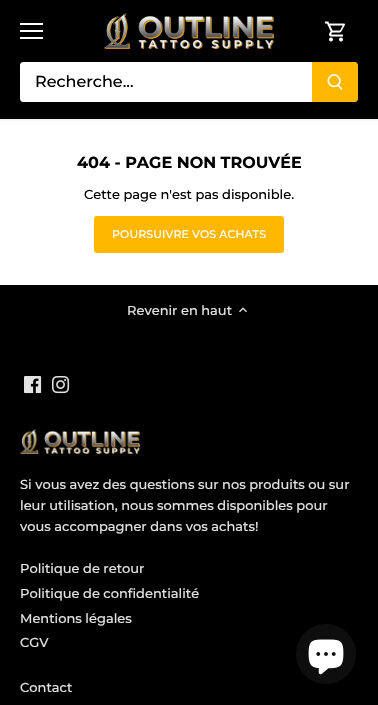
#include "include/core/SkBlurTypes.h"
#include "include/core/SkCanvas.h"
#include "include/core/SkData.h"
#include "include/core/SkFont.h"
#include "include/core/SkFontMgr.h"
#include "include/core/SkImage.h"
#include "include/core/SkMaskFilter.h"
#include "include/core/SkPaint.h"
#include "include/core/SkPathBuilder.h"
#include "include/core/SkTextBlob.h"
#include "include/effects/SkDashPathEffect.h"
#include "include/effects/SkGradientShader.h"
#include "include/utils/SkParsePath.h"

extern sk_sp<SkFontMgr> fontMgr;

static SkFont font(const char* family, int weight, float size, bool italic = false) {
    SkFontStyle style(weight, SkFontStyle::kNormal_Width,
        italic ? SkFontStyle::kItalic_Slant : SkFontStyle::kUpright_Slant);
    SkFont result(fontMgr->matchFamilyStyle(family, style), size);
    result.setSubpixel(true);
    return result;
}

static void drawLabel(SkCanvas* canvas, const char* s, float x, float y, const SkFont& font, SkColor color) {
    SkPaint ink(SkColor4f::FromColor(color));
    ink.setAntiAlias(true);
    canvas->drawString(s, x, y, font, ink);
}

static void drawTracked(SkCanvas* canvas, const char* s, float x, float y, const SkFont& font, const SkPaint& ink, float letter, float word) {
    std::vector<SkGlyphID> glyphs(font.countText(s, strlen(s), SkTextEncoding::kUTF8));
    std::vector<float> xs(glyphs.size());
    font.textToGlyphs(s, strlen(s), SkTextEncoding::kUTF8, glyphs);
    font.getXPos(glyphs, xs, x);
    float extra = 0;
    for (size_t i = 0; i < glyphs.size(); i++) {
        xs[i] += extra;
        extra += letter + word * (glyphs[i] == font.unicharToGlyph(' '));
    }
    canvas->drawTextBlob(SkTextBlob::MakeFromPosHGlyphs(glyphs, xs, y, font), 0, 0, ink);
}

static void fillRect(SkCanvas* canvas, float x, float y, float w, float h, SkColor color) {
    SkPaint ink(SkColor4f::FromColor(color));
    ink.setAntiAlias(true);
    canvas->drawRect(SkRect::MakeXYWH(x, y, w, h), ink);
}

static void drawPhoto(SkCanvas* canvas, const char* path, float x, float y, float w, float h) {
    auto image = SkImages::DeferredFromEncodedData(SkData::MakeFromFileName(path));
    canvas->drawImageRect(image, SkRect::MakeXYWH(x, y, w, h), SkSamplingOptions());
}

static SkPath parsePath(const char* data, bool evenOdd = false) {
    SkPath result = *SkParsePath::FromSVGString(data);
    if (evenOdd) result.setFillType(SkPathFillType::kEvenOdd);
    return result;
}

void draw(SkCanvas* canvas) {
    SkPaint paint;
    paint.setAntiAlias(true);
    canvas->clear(0xFF000000);
    fillRect(canvas, 0, 119, 378, 166, 0xFFFFFFFF);
    paint.setColor(0x14000000);
    paint.setMaskFilter(SkMaskFilter::MakeBlur(kNormal_SkBlurStyle, 1.5f));
    canvas->drawRect(SkRect::MakeXYWH(-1, -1, 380, 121), paint);
    paint.setMaskFilter(nullptr);
    fillRect(canvas, 20, 23, 23, 2, 0xFFFFFFFF);
    fillRect(canvas, 20, 30, 23, 2, 0xFFFFFFFF);
    fillRect(canvas, 20, 37, 23, 2, 0xFFFFFFFF);
    drawPhoto(canvas, "assets/img1.png", 104, 13, 170, 36);
    drawPhoto(canvas, "assets/img2.png", 325, 21, 20, 21);
    paint.setColor(0xFFFFFFFF);
    canvas->drawPath(parsePath("M23 62H313V102H23C21.5 102 20 100.5 20 99V65C20 63.5 21.5 62 23 62Z"), paint);
    SkFont font1 = font("Montserrat", 500, 16);
    drawLabel(canvas, "Recherche...", 35, 87, font1, 0xFF000000);
    paint.setColor(0xFFFFB700);
    canvas->drawPath(parsePath("M312 62H355C356.5 62 358 63.5 358 65V99C358 100.5 356.5 102 355 102H312Z"), paint);
    drawPhoto(canvas, "assets/img3.png", 327, 74, 16, 16);
    SkFont font2 = font("Montserrat", 700, 16);
    drawLabel(canvas, "404 - PAGE NON TROUVÉE", 77, 168, font2, 0xFF000000);
    SkFont font3 = font("Montserrat", 500, 13);
    drawLabel(canvas, "Cette page n'est pas disponible.", 84, 199, font3, 0xFF000000);
    canvas->drawRoundRect(SkRect::MakeXYWH(95, 217, 188, 35), 2, 2, paint);
    paint.setStroke(true);
    paint.setStrokeWidth(2);
    canvas->drawRoundRect(SkRect::MakeXYWH(95, 217, 188, 35), 2, 2, paint);
    SkFont font4 = font("Montserrat", 500, 11);
    paint.setStroke(false);
    paint.setColor(0xFFFFFFFF);
    drawTracked(canvas, "POURSUIVRE VOS ACHATS", 112, 238, font4, paint, 0.1f, 0);
    drawLabel(canvas, "Revenir en haut", 127, 315, font3, 0xFFE2E2E2);
    drawPhoto(canvas, "assets/img4.png", 239, 307, 8, 6);
    drawPhoto(canvas, "assets/img5.png", 24, 376, 18, 18);
    drawPhoto(canvas, "assets/img6.png", 52, 376, 18, 18);
    drawPhoto(canvas, "assets/img7.png", 20, 429, 120, 25);
    drawLabel(canvas, "Si vous avez des questions sur nos produits ou sur", 20, 489, font3, 0xFFE2E2E2);
    drawLabel(canvas, "leur utilisation, nous sommes disponibles pour", 20, 510, font3, 0xFFE2E2E2);
    drawLabel(canvas, "vous accompagner dans vos achats!", 20, 531, font3, 0xFFE2E2E2);
    drawLabel(canvas, "Politique de retour", 20, 573, font3, 0xFFE2E2E2);
    drawLabel(canvas, "Politique de confidentialité", 20, 598, font3, 0xFFE2E2E2);
    drawLabel(canvas, "Mentions légales", 20, 623, font3, 0xFFE2E2E2);
    drawLabel(canvas, "CGV", 20, 647, font3, 0xFFE2E2E2);
    drawLabel(canvas, "Contact", 20, 692, font3, 0xFFE2E2E2);
    paint.setColor(0xFF0E0E0E);
    canvas->drawCircle(326, 654, 30, paint);
    drawPhoto(canvas, "assets/img8.png", 308, 639, 36, 36);
}
